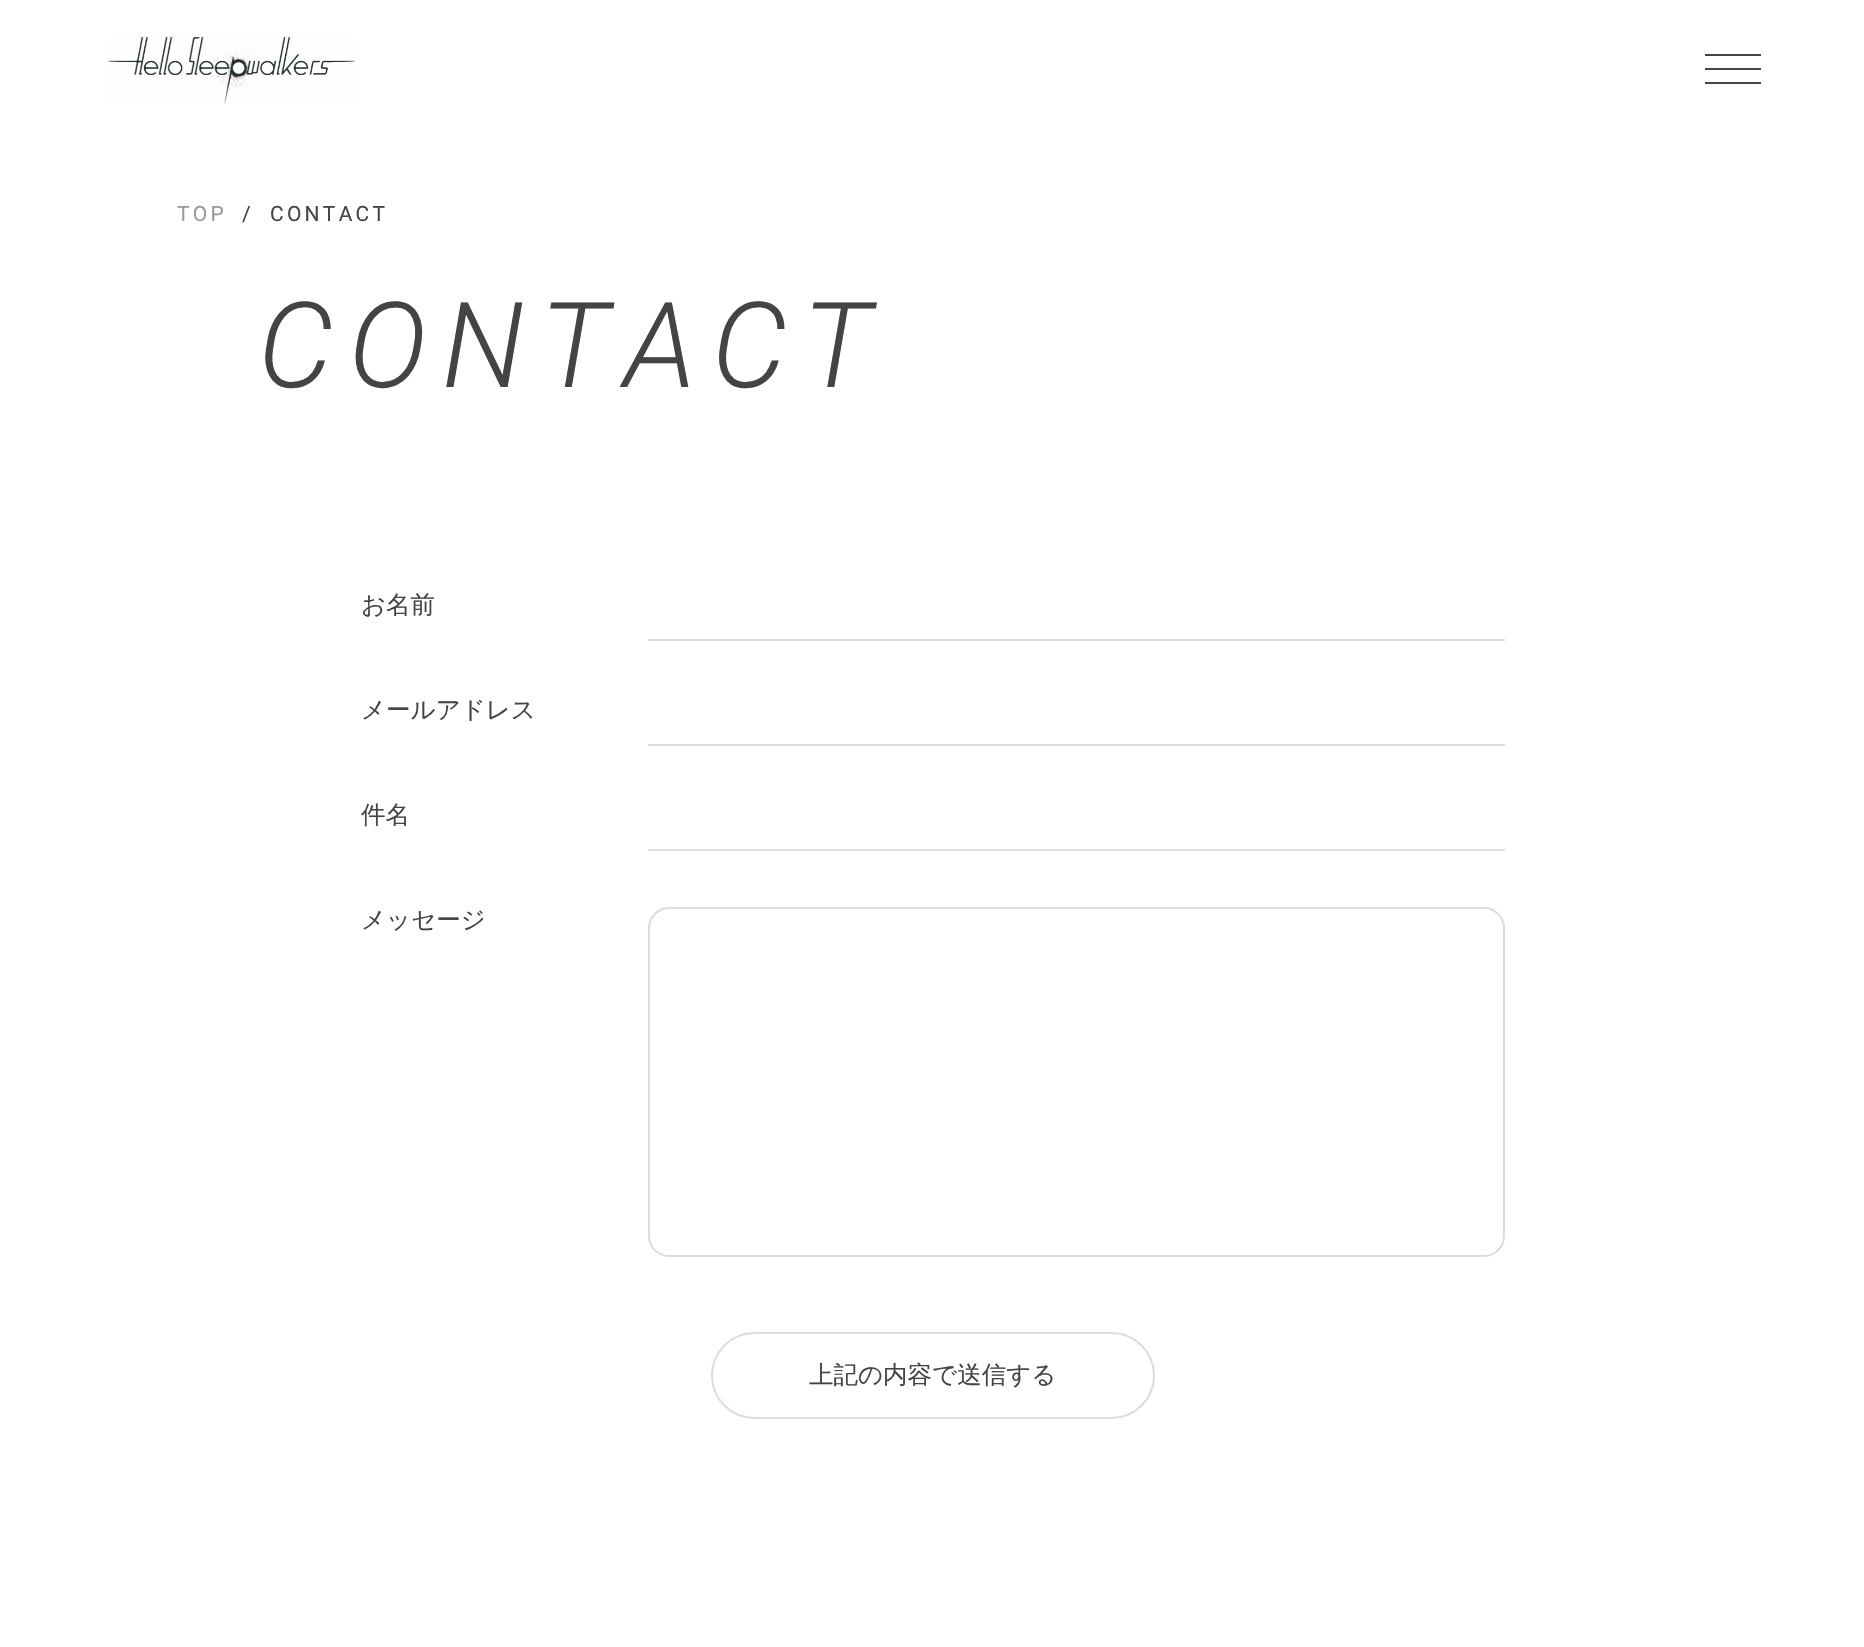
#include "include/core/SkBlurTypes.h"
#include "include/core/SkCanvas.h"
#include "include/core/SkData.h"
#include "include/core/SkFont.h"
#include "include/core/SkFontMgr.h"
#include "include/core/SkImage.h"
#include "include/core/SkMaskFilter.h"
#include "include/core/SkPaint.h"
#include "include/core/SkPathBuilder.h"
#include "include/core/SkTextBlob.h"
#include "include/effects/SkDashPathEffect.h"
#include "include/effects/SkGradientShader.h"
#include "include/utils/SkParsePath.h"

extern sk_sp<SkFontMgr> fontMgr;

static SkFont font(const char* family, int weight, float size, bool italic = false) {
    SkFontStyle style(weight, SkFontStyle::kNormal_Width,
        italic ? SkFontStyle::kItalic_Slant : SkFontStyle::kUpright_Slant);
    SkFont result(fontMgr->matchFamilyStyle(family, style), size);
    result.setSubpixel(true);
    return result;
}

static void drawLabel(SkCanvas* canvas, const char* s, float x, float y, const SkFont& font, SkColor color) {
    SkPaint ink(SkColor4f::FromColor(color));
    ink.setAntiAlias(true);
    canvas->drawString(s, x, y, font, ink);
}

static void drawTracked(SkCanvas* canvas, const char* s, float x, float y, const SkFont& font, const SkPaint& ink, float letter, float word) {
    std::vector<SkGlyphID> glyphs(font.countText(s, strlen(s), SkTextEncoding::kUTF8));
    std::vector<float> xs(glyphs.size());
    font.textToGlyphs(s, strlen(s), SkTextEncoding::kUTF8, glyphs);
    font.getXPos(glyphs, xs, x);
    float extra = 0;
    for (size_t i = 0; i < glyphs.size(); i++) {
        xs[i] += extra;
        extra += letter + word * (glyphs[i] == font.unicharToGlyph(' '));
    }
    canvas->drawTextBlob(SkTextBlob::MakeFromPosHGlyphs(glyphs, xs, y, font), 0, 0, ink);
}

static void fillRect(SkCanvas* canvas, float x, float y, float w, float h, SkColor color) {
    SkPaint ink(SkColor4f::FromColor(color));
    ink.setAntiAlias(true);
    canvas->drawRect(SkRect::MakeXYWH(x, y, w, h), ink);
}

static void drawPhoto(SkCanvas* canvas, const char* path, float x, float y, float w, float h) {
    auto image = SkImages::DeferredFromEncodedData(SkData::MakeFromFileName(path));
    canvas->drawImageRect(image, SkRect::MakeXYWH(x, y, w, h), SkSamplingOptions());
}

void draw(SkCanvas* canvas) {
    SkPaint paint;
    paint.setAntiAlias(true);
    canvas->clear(0xFFFFFFFF);
    drawPhoto(canvas, "assets/img1.png", 107, 37, 249, 67);
    fillRect(canvas, 1705, 54, 56, 2, 0xFF444444);
    fillRect(canvas, 1705, 68, 56, 2, 0xFF444444);
    fillRect(canvas, 1705, 82, 56, 2, 0xFF444444);
    SkFont font1 = font("Roboto", 400, 21);
    paint.setColor(0xFF999999);
    drawTracked(canvas, "TOP", 177, 221, font1, paint, 3.25f, 0);
    paint.setColor(0xFF444444);
    drawTracked(canvas, "/", 242, 221, font1, paint, 3.25f, 0);
    drawTracked(canvas, "CONTACT", 270, 221, font1, paint, 3.25f, 0);
    SkFont font2 = font("Roboto", 300, 119, true);
    drawTracked(canvas, "CONTACT", 258, 387, font2, paint, 15.5f, 0);
    SkFont font3 = font("WenQuanYi Zen Hei", 500, 24.5f);
    drawLabel(canvas, "お名前", 361, 613, font3, 0xFF444444);
    fillRect(canvas, 648, 639, 857, 2, 0xFFDCDCDC);
    drawLabel(canvas, "メールアドレス", 361, 718, font3, 0xFF444444);
    fillRect(canvas, 648, 744, 857, 2, 0xFFDCDCDC);
    drawLabel(canvas, "件名", 361, 823, font3, 0xFF444444);
    fillRect(canvas, 648, 849, 857, 2, 0xFFDCDCDC);
    drawLabel(canvas, "メッセージ", 361, 928, font3, 0xFF444444);
    paint.setStroke(true);
    paint.setStrokeWidth(2);
    paint.setColor(0xFFDCDCDC);
    canvas->drawRoundRect(SkRect::MakeXYWH(649, 908, 855, 348), 20, 20, paint);
    canvas->drawRoundRect(SkRect::MakeXYWH(712, 1333, 442, 85), 42.5f, 42.5f, paint);
    drawLabel(canvas, "上記の内容で送信する", 809, 1383, font3, 0xFF444444);
}
